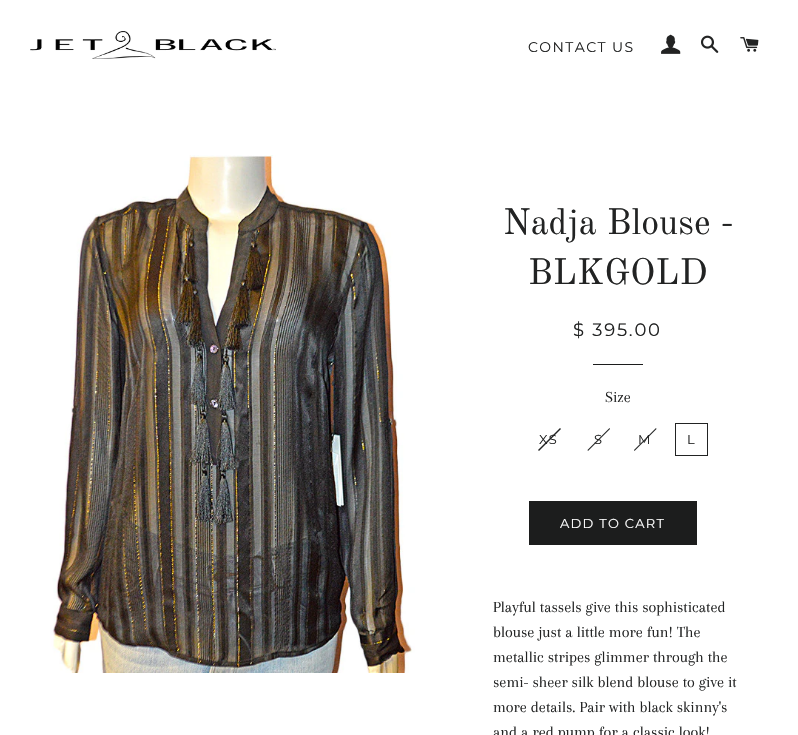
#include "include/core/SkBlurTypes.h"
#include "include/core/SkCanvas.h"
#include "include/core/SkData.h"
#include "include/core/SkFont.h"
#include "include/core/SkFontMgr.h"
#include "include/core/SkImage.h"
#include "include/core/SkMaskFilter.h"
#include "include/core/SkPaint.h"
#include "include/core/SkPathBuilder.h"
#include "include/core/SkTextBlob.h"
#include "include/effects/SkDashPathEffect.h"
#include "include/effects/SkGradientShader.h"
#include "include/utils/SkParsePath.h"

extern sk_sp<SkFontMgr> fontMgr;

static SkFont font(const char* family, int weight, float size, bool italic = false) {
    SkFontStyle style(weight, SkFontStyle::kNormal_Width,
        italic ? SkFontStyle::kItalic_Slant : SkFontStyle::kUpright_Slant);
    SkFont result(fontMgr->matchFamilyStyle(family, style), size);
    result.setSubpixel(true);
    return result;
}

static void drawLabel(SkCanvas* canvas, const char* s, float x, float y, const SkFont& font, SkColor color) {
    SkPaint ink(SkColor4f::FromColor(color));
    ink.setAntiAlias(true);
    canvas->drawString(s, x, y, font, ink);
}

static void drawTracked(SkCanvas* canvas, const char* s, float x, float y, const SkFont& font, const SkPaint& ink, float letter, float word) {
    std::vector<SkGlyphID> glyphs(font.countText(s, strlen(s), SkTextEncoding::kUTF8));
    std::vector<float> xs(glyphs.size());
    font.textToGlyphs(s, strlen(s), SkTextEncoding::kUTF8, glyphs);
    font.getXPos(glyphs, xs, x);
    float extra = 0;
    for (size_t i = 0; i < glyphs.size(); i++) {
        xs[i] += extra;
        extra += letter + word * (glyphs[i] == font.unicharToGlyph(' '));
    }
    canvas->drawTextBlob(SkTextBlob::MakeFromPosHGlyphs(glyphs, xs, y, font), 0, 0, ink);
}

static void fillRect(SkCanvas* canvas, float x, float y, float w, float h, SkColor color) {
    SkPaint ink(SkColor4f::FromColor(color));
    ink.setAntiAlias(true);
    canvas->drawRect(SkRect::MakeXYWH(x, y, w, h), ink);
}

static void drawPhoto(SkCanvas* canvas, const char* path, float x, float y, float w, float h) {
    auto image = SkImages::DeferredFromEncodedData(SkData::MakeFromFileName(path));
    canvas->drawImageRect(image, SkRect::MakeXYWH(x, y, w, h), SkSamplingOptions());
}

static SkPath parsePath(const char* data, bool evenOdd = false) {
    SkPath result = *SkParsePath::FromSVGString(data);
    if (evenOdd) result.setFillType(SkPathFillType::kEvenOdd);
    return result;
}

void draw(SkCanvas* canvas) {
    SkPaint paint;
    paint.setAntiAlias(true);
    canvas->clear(0xFFFFFFFF);
    drawPhoto(canvas, "assets/img1.png", 30, 31, 246, 28);
    SkFont font1 = font("Montserrat", 100, 14);
    paint.setColor(0xFF222323);
    drawTracked(canvas, "CONTACT US", 528, 52, font1, paint, 1.4f, 0);
    drawPhoto(canvas, "assets/img2.png", 661, 34, 20, 20);
    drawPhoto(canvas, "assets/img3.png", 701, 35, 18, 18);
    drawPhoto(canvas, "assets/img4.png", 740, 37, 19, 15);
    drawPhoto(canvas, "assets/img5.png", 30, 155, 418, 518);
    SkFont font2 = font("Old Standard TT", 400, 36);
    drawLabel(canvas, "Nadja Blouse -", 503, 234, font2, 0xFF222323);
    drawLabel(canvas, "BLKGOLD", 528, 284, font2, 0xFF222323);
    SkFont font3 = font("Montserrat", 100, 18);
    drawTracked(canvas, "$ 395.00", 573, 336, font3, paint, 1.75f, 0);
    fillRect(canvas, 593, 364, 50, 1, 0xFF1C1D1D);
    SkFont font4 = font("Arapey", 400, 16);
    drawLabel(canvas, "Size", 605, 402, font4, 0xFF222323);
    canvas->drawPath(parsePath("M560 428L561 429L539 451L538 450Z"), paint);
    SkFont font5 = font("Montserrat", 100, 13);
    drawTracked(canvas, "XS", 539, 444, font5, paint, 1.25f, 0);
    canvas->drawPath(parsePath("M609.5 428L610 429L588 451L587.5 450Z"), paint);
    drawTracked(canvas, "S", 594, 444, font5, paint, 1.25f, 0);
    canvas->drawPath(parsePath("M656 428L656.5 429L634.5 451L634 450Z"), paint);
    drawTracked(canvas, "M", 638, 444, font5, paint, 1.25f, 0);
    paint.setStroke(true);
    paint.setStrokeWidth(1);
    canvas->drawRect(SkRect::MakeXYWH(675.5f, 423.5f, 32, 32), paint);
    paint.setStroke(false);
    drawTracked(canvas, "L", 687, 444, font5, paint, 1.25f, 0);
    fillRect(canvas, 529, 501, 168, 44, 0xFF1C1D1D);
    paint.setColor(0xFFFFFFFF);
    drawTracked(canvas, "ADD TO CART", 560, 528, font5, paint, 1.25f, 0);
    drawLabel(canvas, "Playful tassels give this sophisticated", 493, 612, font4, 0xFF222323);
    drawLabel(canvas, "blouse just a little more fun! The", 493, 637, font4, 0xFF222323);
    drawLabel(canvas, "metallic stripes glimmer through the", 493, 662, font4, 0xFF222323);
    drawLabel(canvas, "semi- sheer silk blend blouse to give it", 493, 687, font4, 0xFF222323);
    drawLabel(canvas, "more details. Pair with black skinny's", 493, 712, font4, 0xFF222323);
    drawLabel(canvas, "and a red pump for a classic look!", 493, 737, font4, 0xFF222323);
}
